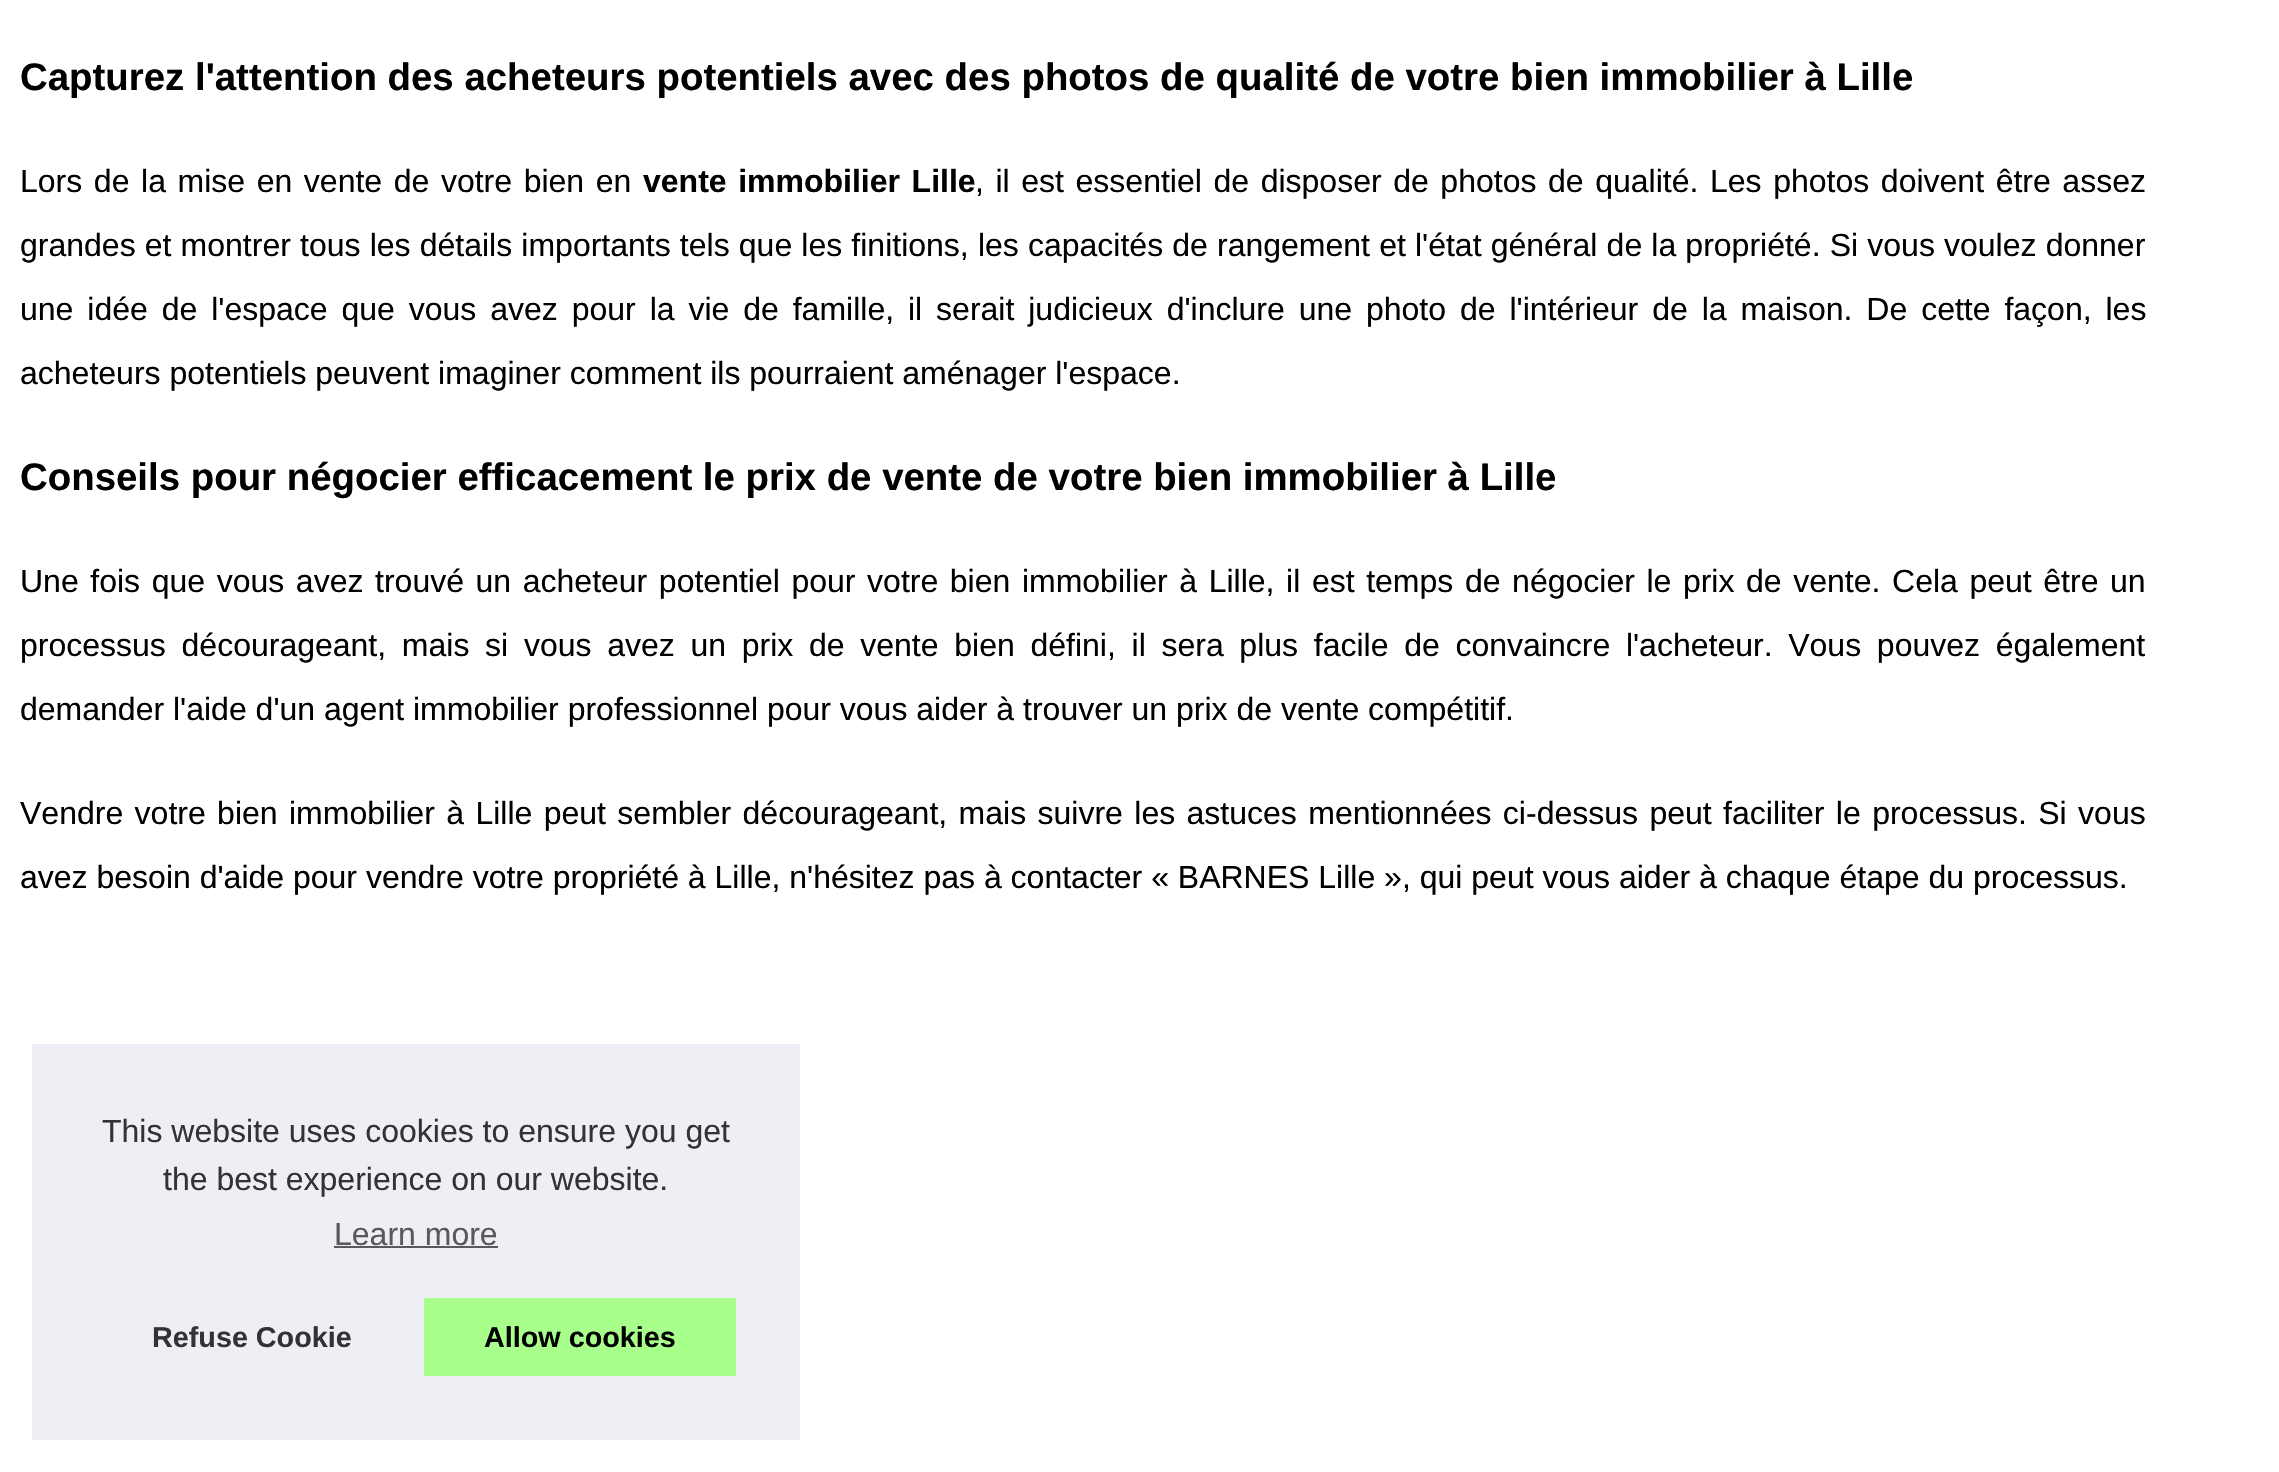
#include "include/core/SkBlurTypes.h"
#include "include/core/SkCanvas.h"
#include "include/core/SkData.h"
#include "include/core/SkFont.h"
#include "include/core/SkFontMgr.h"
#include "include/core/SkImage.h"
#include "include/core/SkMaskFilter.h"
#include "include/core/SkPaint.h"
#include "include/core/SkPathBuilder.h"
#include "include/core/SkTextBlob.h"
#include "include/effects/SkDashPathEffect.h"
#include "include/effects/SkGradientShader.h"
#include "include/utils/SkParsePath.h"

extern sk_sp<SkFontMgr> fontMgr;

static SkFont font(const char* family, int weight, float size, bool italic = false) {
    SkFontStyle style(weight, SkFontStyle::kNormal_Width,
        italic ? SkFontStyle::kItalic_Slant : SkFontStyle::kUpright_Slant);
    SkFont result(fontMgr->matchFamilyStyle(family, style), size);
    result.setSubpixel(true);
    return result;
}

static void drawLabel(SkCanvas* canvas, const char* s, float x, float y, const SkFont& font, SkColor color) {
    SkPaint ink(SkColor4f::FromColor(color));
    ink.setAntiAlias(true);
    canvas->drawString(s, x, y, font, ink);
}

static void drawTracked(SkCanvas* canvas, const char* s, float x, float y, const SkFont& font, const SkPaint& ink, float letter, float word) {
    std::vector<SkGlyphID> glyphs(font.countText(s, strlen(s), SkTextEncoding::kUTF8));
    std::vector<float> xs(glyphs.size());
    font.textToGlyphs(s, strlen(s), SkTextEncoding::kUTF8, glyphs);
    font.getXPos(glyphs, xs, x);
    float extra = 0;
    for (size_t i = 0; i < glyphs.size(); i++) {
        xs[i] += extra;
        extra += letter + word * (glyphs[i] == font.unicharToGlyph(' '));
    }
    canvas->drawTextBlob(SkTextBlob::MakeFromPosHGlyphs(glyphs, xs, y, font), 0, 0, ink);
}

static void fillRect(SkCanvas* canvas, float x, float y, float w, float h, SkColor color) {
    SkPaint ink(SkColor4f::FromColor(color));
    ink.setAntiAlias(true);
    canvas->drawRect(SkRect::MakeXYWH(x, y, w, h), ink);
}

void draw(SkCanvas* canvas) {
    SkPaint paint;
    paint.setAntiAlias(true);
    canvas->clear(0xFFFFFFFF);
    SkFont font1 = font("Liberation Sans", 700, 38.4f);
    drawLabel(canvas, "Capturez l'attention des acheteurs potentiels avec des photos de qualité de votre bien immobilier à Lille", 20, 90, font1, 0xFF000000);
    SkFont font2 = font("Liberation Sans", 400, 32);
    paint.setColor(0xFF000000);
    drawTracked(canvas, "Lors de la mise en vente de votre bien en", 20, 192, font2, paint, 0, 2.7f);
    SkFont font3 = font("Liberation Sans", 700, 32);
    drawTracked(canvas, "vente immobilier Lille", 643, 192, font3, paint, 0, 2.7f);
    drawTracked(canvas, ", il est essentiel de disposer de photos de qualité. Les photos doivent être assez", 975, 192, font2, paint, 0, 2.7f);
    drawTracked(canvas, "grandes et montrer tous les détails importants tels que les finitions, les capacités de rangement et l'état général de la propriété. Si vous voulez donner", 20, 256, font2, paint, 0, 0.25f);
    drawTracked(canvas, "une idée de l'espace que vous avez pour la vie de famille, il serait judicieux d'inclure une photo de l'intérieur de la maison. De cette façon, les", 20, 320, font2, paint, 0, 5);
    drawLabel(canvas, "acheteurs potentiels peuvent imaginer comment ils pourraient aménager l'espace.", 20, 384, font2, 0xFF000000);
    drawLabel(canvas, "Conseils pour négocier efficacement le prix de vente de votre bien immobilier à Lille", 20, 490, font1, 0xFF000000);
    drawTracked(canvas, "Une fois que vous avez trouvé un acheteur potentiel pour votre bien immobilier à Lille, il est temps de négocier le prix de vente. Cela peut être un", 20, 592, font2, paint, 0, 2.7f);
    drawTracked(canvas, "processus décourageant, mais si vous avez un prix de vente bien défini, il sera plus facile de convaincre l'acheteur. Vous pouvez également", 20, 656, font2, paint, 0, 6.8f);
    drawLabel(canvas, "demander l'aide d'un agent immobilier professionnel pour vous aider à trouver un prix de vente compétitif.", 20, 720, font2, 0xFF000000);
    drawTracked(canvas, "Vendre votre bien immobilier à Lille peut sembler décourageant, mais suivre les astuces mentionnées ci-dessus peut faciliter le processus. Si vous", 20, 824, font2, paint, 0, 2.5f);
    drawLabel(canvas, "avez besoin d'aide pour vendre votre propriété à Lille, n'hésitez pas à contacter « BARNES Lille », qui peut vous aider à chaque étape du processus.", 20, 888, font2, 0xFF000000);
    fillRect(canvas, 32, 1044, 768, 396, 0xFFEDEFF5);
    drawLabel(canvas, "This website uses cookies to ensure you get", 102, 1142, font2, 0xFF333333);
    drawLabel(canvas, "the best experience on our website.", 163, 1190, font2, 0xFF333333);
    drawLabel(canvas, "Learn more", 334, 1245, font2, 0xFF58595A);
    fillRect(canvas, 334, 1246, 164, 2, 0xFF58595A);
    SkFont font4 = font("Liberation Sans", 700, 28.75f);
    drawLabel(canvas, "Refuse Cookie", 152, 1347, font4, 0xFF333333);
    fillRect(canvas, 424, 1298, 312, 78, 0xFFA8FF8C);
    drawLabel(canvas, "Allow cookies", 484, 1347, font4, 0xFF000000);
}
